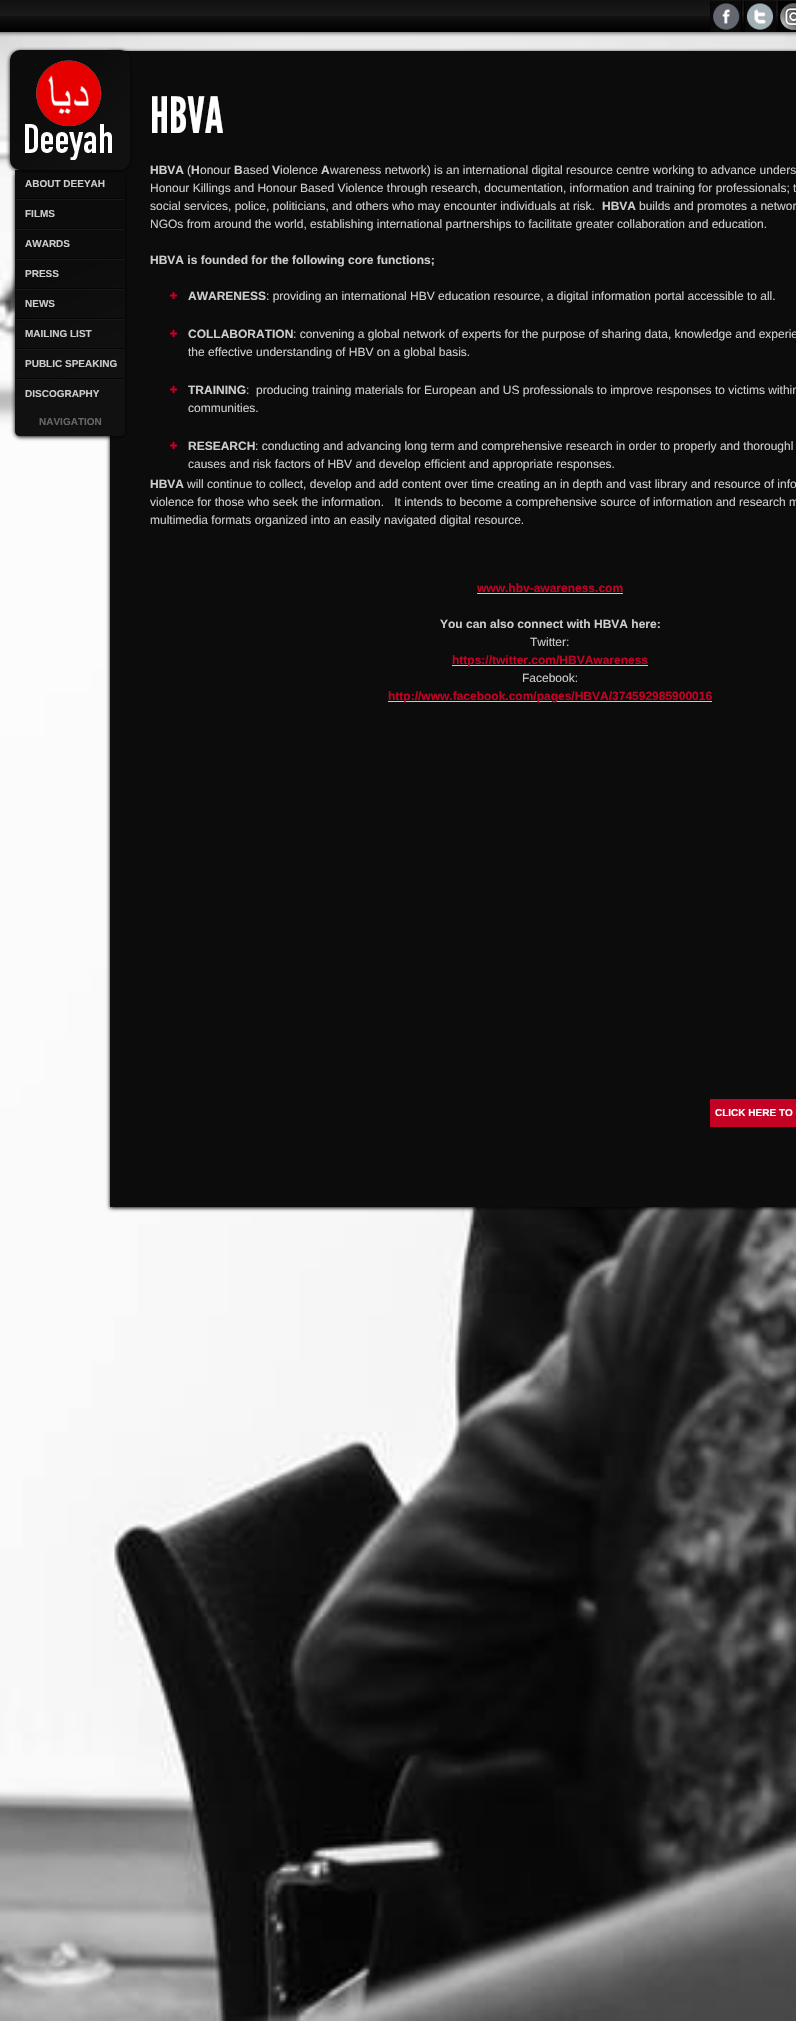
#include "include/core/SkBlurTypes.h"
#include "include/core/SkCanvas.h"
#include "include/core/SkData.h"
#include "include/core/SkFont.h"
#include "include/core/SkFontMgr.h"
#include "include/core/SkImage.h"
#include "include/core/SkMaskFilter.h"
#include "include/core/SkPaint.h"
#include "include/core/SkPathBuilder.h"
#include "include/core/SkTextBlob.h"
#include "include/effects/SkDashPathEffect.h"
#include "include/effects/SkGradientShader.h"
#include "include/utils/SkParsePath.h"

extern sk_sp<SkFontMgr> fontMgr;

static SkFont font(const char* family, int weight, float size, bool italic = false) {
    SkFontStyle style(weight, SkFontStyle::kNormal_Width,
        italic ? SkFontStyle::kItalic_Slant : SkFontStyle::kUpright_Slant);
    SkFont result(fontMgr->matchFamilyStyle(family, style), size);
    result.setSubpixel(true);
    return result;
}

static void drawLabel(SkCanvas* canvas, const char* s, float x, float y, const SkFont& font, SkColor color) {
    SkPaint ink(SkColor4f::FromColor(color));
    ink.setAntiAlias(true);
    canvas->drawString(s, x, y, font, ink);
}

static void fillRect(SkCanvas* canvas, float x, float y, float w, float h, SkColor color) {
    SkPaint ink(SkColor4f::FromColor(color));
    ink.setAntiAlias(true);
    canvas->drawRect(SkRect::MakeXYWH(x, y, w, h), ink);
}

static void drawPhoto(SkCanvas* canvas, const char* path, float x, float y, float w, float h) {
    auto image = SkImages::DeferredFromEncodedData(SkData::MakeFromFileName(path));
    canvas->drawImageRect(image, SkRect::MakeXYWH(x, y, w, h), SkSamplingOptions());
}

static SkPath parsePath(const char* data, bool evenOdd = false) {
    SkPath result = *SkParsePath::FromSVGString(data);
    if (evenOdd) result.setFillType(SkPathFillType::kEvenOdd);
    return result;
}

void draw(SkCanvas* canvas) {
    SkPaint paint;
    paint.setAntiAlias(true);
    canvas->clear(0xFFFFFFFF);
    drawPhoto(canvas, "assets/img1.png", 0, 32, 796, 1989);
    drawPhoto(canvas, "assets/img2.png", 0, 0, 796, 37);
    drawPhoto(canvas, "assets/img3.png", 710, 1, 32, 31);
    drawPhoto(canvas, "assets/img4.png", 744, 1, 32, 31);
    drawPhoto(canvas, "assets/img5.png", 778, 1, 18, 29);
    paint.setColor(0xFF000000);
    paint.setMaskFilter(SkMaskFilter::MakeBlur(kNormal_SkBlurStyle, 2));
    canvas->drawRect(SkRect::MakeXYWH(110, 52, 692, 1156), paint);
    paint.setMaskFilter(nullptr);
    fillRect(canvas, 110, 51, 686, 1156, 0xFF0C0C0C);
    paint.setMaskFilter(SkMaskFilter::MakeBlur(kNormal_SkBlurStyle, 2));
    canvas->drawRoundRect(SkRect::MakeXYWH(15, 171, 110, 266), 5, 5, paint);
    paint.setMaskFilter(nullptr);
    {
        const SkColor colors[] = {0xFF111111, 0xFF0C0C0C};
        const float stops[] = {0.23f, 0.62f};
        const SkPoint ends[] = {{125, 436}, {15, 170}};
        paint.setShader(SkGradientShader::MakeLinear(ends, colors, stops, 2, SkTileMode::kClamp));
        paint.setAlpha(255);
    }
    canvas->drawPath(parsePath("M15 170H125V431C125 434 123 436 120 436H20C17 436 15 434 15 431Z"), paint);
    paint.setShader(nullptr);
    paint.setColor(0xFF000000);
    paint.setMaskFilter(SkMaskFilter::MakeBlur(kNormal_SkBlurStyle, 2));
    canvas->drawRoundRect(SkRect::MakeXYWH(10, 51, 120, 120), 10, 10, paint);
    paint.setMaskFilter(nullptr);
    {
        const SkColor colors[] = {0xFF111111, 0xFF0C0C0C};
        const float stops[] = {0.23f, 0.62f};
        const SkPoint ends[] = {{130, 170}, {10, 50}};
        paint.setShader(SkGradientShader::MakeLinear(ends, colors, stops, 2, SkTileMode::kClamp));
        paint.setAlpha(255);
    }
    canvas->drawRoundRect(SkRect::MakeXYWH(10, 50, 120, 120), 10, 10, paint);
    drawPhoto(canvas, "assets/img6.png", 25, 60, 87, 100);
    fillRect(canvas, 15, 198, 110, 1, 0xFF050505);
    SkFont font1 = font("Liberation Sans", 700, 10);
    drawLabel(canvas, "ABOUT DEEYAH", 25, 187, font1, 0xFFCCCCCC);
    fillRect(canvas, 15, 199, 110, 1, 0xFF181818);
    fillRect(canvas, 15, 228, 110, 1, 0xFF050505);
    drawLabel(canvas, "FILMS", 25, 217, font1, 0xFFCCCCCC);
    fillRect(canvas, 15, 229, 110, 1, 0xFF181818);
    fillRect(canvas, 15, 258, 110, 1, 0xFF050505);
    drawLabel(canvas, "AWARDS", 25, 247, font1, 0xFFCCCCCC);
    fillRect(canvas, 15, 259, 110, 1, 0xFF181818);
    fillRect(canvas, 15, 288, 110, 1, 0xFF050505);
    drawLabel(canvas, "PRESS", 25, 277, font1, 0xFFCCCCCC);
    fillRect(canvas, 15, 289, 110, 1, 0xFF181818);
    fillRect(canvas, 15, 318, 110, 1, 0xFF050505);
    drawLabel(canvas, "NEWS", 25, 307, font1, 0xFFCCCCCC);
    fillRect(canvas, 15, 319, 110, 1, 0xFF181818);
    fillRect(canvas, 15, 348, 110, 1, 0xFF050505);
    drawLabel(canvas, "MAILING LIST", 25, 337, font1, 0xFFCCCCCC);
    fillRect(canvas, 15, 349, 110, 1, 0xFF181818);
    fillRect(canvas, 15, 378, 110, 1, 0xFF050505);
    drawLabel(canvas, "PUBLIC SPEAKING", 25, 367, font1, 0xFFCCCCCC);
    fillRect(canvas, 15, 379, 110, 1, 0xFF181818);
    drawLabel(canvas, "DISCOGRAPHY", 25, 397, font1, 0xFFCCCCCC);
    drawLabel(canvas, "NAVIGATION", 39, 425, font1, 0xFF666666);
    SkFont font2 = font("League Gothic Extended", 400, 50);
    drawLabel(canvas, "HBVA", 150, 133, font2, 0xFFFFFFFF);
    SkFont font3 = font("Liberation Sans", 700, 12);
    drawLabel(canvas, "HBVA", 150, 174, font3, 0xFFCCCCCC);
    SkFont font4 = font("Liberation Sans", 400, 12);
    drawLabel(canvas, "(", 187, 174, font4, 0xFFCCCCCC);
    drawLabel(canvas, "H", 191, 174, font3, 0xFFCCCCCC);
    drawLabel(canvas, "onour", 200, 174, font4, 0xFFCCCCCC);
    drawLabel(canvas, "B", 234, 174, font3, 0xFFCCCCCC);
    drawLabel(canvas, "ased", 243, 174, font4, 0xFFCCCCCC);
    drawLabel(canvas, "V", 272, 174, font3, 0xFFCCCCCC);
    drawLabel(canvas, "iolence", 280, 174, font4, 0xFFCCCCCC);
    drawLabel(canvas, "A", 321, 174, font3, 0xFFCCCCCC);
    drawLabel(canvas, "wareness network) is an international digital resource centre working to advance unders", 330, 174, font4, 0xFFCCCCCC);
    drawLabel(canvas, "Honour Killings and Honour Based Violence through research, documentation, information and training for professionals; t", 150, 192, font4, 0xFFCCCCCC);
    drawLabel(canvas, "social services, police, politicians, and others who may encounter individuals at risk.", 150, 210, font4, 0xFFCCCCCC);
    drawLabel(canvas, "HBVA", 602, 210, font3, 0xFFCCCCCC);
    drawLabel(canvas, "builds and promotes a networ", 639, 210, font4, 0xFFCCCCCC);
    drawLabel(canvas, "NGOs from around the world, establishing international partnerships to facilitate greater collaboration and education.", 150, 228, font4, 0xFFCCCCCC);
    drawLabel(canvas, "HBVA is founded for the following core functions;", 150, 264, font3, 0xFFCCCCCC);
    drawPhoto(canvas, "assets/img7.png", 170, 292, 7, 7);
    drawLabel(canvas, "AWARENESS", 188, 300, font3, 0xFFCCCCCC);
    drawLabel(canvas, ": providing an international HBV education resource, a digital information portal accessible to all.", 266, 300, font4, 0xFFCCCCCC);
    drawPhoto(canvas, "assets/img7.png", 170, 330, 7, 7);
    drawLabel(canvas, "COLLABORATION", 188, 338, font3, 0xFFCCCCCC);
    drawLabel(canvas, ": convening a global network of experts for the purpose of sharing data, knowledge and experie", 293, 338, font4, 0xFFCCCCCC);
    drawLabel(canvas, "the effective understanding of HBV on a global basis.", 188, 356, font4, 0xFFCCCCCC);
    drawPhoto(canvas, "assets/img7.png", 170, 386, 7, 7);
    drawLabel(canvas, "TRAINING", 188, 394, font3, 0xFFCCCCCC);
    drawLabel(canvas, ":  producing training materials for European and US professionals to improve responses to victims within", 246, 394, font4, 0xFFCCCCCC);
    drawLabel(canvas, "communities.", 188, 412, font4, 0xFFCCCCCC);
    drawPhoto(canvas, "assets/img7.png", 170, 442, 7, 7);
    drawLabel(canvas, "RESEARCH", 188, 450, font3, 0xFFCCCCCC);
    drawLabel(canvas, ": conducting and advancing long term and comprehensive research in order to properly and thoroughl", 255, 450, font4, 0xFFCCCCCC);
    drawLabel(canvas, "causes and risk factors of HBV and develop efficient and appropriate responses.", 188, 468, font4, 0xFFCCCCCC);
    drawLabel(canvas, "HBVA", 150, 488, font3, 0xFFCCCCCC);
    drawLabel(canvas, "will continue to collect, develop and add content over time creating an in depth and vast library and resource of info", 187, 488, font4, 0xFFCCCCCC);
    drawLabel(canvas, "violence for those who seek the information.   It intends to become a comprehensive source of information and research m", 150, 506, font4, 0xFFCCCCCC);
    drawLabel(canvas, "multimedia formats organized into an easily navigated digital resource.", 150, 524, font4, 0xFFCCCCCC);
    drawLabel(canvas, "www.hbv-awareness.com", 477, 592, font3, 0xFFC20125);
    fillRect(canvas, 477, 593, 146, 1, 0xFFCCCCCC);
    drawLabel(canvas, "You can also connect with HBVA here:", 440, 628, font3, 0xFFCCCCCC);
    drawLabel(canvas, "Twitter:", 530, 646, font4, 0xFFCCCCCC);
    fillRect(canvas, 452, 665, 196, 1, 0xFFCCCCCC);
    drawLabel(canvas, "https://twitter.com/HBVAwareness", 452, 664, font3, 0xFFC20125);
    drawLabel(canvas, "Facebook:", 522, 682, font4, 0xFFCCCCCC);
    fillRect(canvas, 388, 701, 324, 1, 0xFFCCCCCC);
    drawLabel(canvas, "http://www.facebook.com/pages/HBVA/374592985900016", 388, 700, font3, 0xFFC20125);
    fillRect(canvas, 710, 1099, 86, 28, 0xFFC20125);
    drawLabel(canvas, "CLICK HERE TO", 715, 1116, font1, 0xFFFFFFFF);
}
